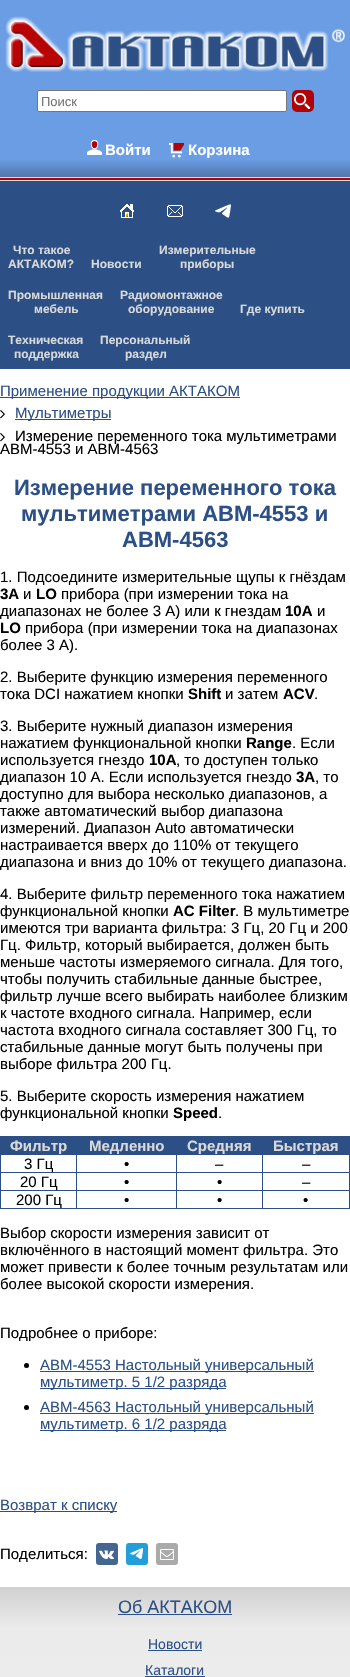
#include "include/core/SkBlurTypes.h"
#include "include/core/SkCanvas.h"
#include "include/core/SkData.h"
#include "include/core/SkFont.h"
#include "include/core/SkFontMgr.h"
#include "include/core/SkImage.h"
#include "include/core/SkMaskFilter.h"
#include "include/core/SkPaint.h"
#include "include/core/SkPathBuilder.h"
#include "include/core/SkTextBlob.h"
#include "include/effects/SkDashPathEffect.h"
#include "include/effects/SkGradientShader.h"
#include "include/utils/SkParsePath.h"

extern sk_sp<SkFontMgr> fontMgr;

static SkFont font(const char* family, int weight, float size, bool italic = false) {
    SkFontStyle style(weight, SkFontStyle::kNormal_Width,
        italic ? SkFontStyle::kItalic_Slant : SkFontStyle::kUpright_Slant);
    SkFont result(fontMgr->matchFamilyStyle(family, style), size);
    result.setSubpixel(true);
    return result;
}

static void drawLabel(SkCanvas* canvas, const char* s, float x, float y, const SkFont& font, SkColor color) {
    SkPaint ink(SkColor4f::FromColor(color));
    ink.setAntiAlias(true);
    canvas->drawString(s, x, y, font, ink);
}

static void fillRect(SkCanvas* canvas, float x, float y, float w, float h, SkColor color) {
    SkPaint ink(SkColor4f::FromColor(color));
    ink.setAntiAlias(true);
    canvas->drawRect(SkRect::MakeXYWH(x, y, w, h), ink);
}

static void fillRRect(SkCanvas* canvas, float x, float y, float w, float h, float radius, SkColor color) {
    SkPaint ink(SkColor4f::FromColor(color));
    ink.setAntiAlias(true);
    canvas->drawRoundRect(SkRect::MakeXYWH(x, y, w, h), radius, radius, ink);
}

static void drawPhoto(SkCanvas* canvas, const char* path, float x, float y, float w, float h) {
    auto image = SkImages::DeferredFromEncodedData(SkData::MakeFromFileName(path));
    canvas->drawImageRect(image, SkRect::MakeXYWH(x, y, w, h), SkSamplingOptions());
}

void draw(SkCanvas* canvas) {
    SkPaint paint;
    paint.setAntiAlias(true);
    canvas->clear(0xFFFFFFFF);
    {
        const SkColor colors[] = {0xFF6A9DE4, 0xFF5076AB};
        const float stops[] = {0.9f, 1};
        const SkPoint ends[] = {{175, 0}, {175, 177}};
        paint.setShader(SkGradientShader::MakeLinear(ends, colors, stops, 2, SkTileMode::kClamp));
        paint.setAlpha(255);
    }
    canvas->drawRect(SkRect::MakeXYWH(0, 0, 350, 177), paint);
    drawPhoto(canvas, "assets/img1.png", 5, 16, 340, 56);
    paint.setShader(nullptr);
    paint.setColor(0xFFFFFFFF);
    canvas->drawRoundRect(SkRect::MakeXYWH(37.5f, 90.5f, 249, 21), 1.5f, 1.5f, paint);
    paint.setStroke(true);
    paint.setStrokeWidth(1);
    paint.setColor(0xFF767676);
    canvas->drawRoundRect(SkRect::MakeXYWH(37.5f, 90.5f, 249, 21), 1.5f, 1.5f, paint);
    SkFont font1 = font("Liberation Sans", 400, 13);
    drawLabel(canvas, "Поиск", 41, 106, font1, 0xFF757575);
    fillRRect(canvas, 292, 90, 22, 22, 5, 0xFFB00305);
    drawPhoto(canvas, "assets/img2.png", 294, 93, 17, 16);
    drawPhoto(canvas, "assets/img3.png", 87, 140, 15, 15);
    SkFont font2 = font("Liberation Sans", 700, 15);
    drawLabel(canvas, "Войти", 105, 155, font2, 0xFFFFFFFF);
    drawPhoto(canvas, "assets/img4.png", 169, 143, 15, 15);
    drawLabel(canvas, "Корзина", 188, 155, font2, 0xFFFFFFFF);
    fillRect(canvas, 0, 177, 350, 1, 0xFFD9D9D9);
    fillRect(canvas, 0, 178, 350, 2, 0xFFB00305);
    fillRect(canvas, 0, 180, 350, 1, 0xFFD9D9D9);
    fillRect(canvas, 0, 181, 350, 188, 0xFF2C5085);
    drawPhoto(canvas, "assets/img5.png", 120, 204, 14, 14);
    drawPhoto(canvas, "assets/img6.png", 167, 205, 16, 12);
    drawPhoto(canvas, "assets/img7.png", 215, 204, 16, 14);
    SkFont font3 = font("Liberation Sans", 700, 12);
    drawLabel(canvas, "Что такое", 13, 254, font3, 0xFFD9D9D9);
    drawLabel(canvas, "АКТАКОМ?", 8, 268, font3, 0xFFD9D9D9);
    drawLabel(canvas, "Новости", 91, 268, font3, 0xFFD9D9D9);
    drawLabel(canvas, "Измерительные", 159, 254, font3, 0xFFD9D9D9);
    drawLabel(canvas, "приборы", 180, 268, font3, 0xFFD9D9D9);
    drawLabel(canvas, "Промышленная", 8, 299, font3, 0xFFD9D9D9);
    drawLabel(canvas, "мебель", 34, 313, font3, 0xFFD9D9D9);
    drawLabel(canvas, "Радиомонтажное", 120, 299, font3, 0xFFD9D9D9);
    drawLabel(canvas, "оборудование", 128, 313, font3, 0xFFD9D9D9);
    drawLabel(canvas, "Где купить", 240, 313, font3, 0xFFD9D9D9);
    drawLabel(canvas, "Техническая", 8, 344, font3, 0xFFD9D9D9);
    drawLabel(canvas, "поддержка", 14, 358, font3, 0xFFD9D9D9);
    drawLabel(canvas, "Персональный", 100, 344, font3, 0xFFD9D9D9);
    drawLabel(canvas, "раздел", 125, 358, font3, 0xFFD9D9D9);
    fillRect(canvas, 0, 397, 240, 1, 0xFF2C5085);
    SkFont font4 = font("Liberation Sans", 400, 15);
    drawLabel(canvas, "Применение продукции АКТАКОМ", 0, 396, font4, 0xFF2C5085);
    drawPhoto(canvas, "assets/img8.png", 0, 410, 5, 9);
    fillRect(canvas, 15, 419, 96, 1, 0xFF2C5085);
    drawLabel(canvas, "Мультиметры", 15, 418, font4, 0xFF2C5085);
    drawPhoto(canvas, "assets/img8.png", 0, 433, 5, 9);
    drawLabel(canvas, "Измерение переменного тока мультиметрами", 15, 441, font4, 0xFF000000);
    drawLabel(canvas, "АВМ-4553 и АВМ-4563", 0, 454, font4, 0xFF000000);
    SkFont font5 = font("Liberation Sans", 700, 22);
    drawLabel(canvas, "Измерение переменного тока", 14, 495, font5, 0xFF2C5085);
    drawLabel(canvas, "мультиметрами АВМ-4553 и", 21, 521, font5, 0xFF2C5085);
    drawLabel(canvas, "АВМ-4563", 122, 547, font5, 0xFF2C5085);
    drawLabel(canvas, "1. Подсоедините измерительные щупы к гнёздам", 0, 582, font4, 0xFF000000);
    drawLabel(canvas, "3А", 0, 599, font2, 0xFF000000);
    drawLabel(canvas, "и", 23, 599, font4, 0xFF000000);
    drawLabel(canvas, "LO", 36, 599, font2, 0xFF000000);
    drawLabel(canvas, "прибора (при измерении тока на", 61, 599, font4, 0xFF000000);
    drawLabel(canvas, "диапазонах не более 3 А) или к гнездам", 0, 616, font4, 0xFF000000);
    drawLabel(canvas, "10А", 285, 616, font2, 0xFF000000);
    drawLabel(canvas, "и", 317, 616, font4, 0xFF000000);
    drawLabel(canvas, "LO", 0, 633, font2, 0xFF000000);
    drawLabel(canvas, "прибора (при измерении тока на диапазонах", 25, 633, font4, 0xFF000000);
    drawLabel(canvas, "более 3 А).", 0, 650, font4, 0xFF000000);
    drawLabel(canvas, "2. Выберите функцию измерения переменного", 0, 682, font4, 0xFF000000);
    drawLabel(canvas, "тока DCI нажатием кнопки", 0, 699, font4, 0xFF000000);
    drawLabel(canvas, "Shift", 188, 699, font2, 0xFF000000);
    drawLabel(canvas, "и затем", 225, 699, font4, 0xFF000000);
    drawLabel(canvas, "ACV", 283, 699, font2, 0xFF000000);
    drawLabel(canvas, ".", 314, 699, font4, 0xFF000000);
    drawLabel(canvas, "3. Выберите нужный диапазон измерения", 0, 731, font4, 0xFF000000);
    drawLabel(canvas, "нажатием функциональной кнопки", 0, 748, font4, 0xFF000000);
    drawLabel(canvas, "Range", 246, 748, font2, 0xFF000000);
    drawLabel(canvas, ". Если", 292, 748, font4, 0xFF000000);
    drawLabel(canvas, "используется гнездо", 0, 765, font4, 0xFF000000);
    drawLabel(canvas, "10А", 149, 765, font2, 0xFF000000);
    drawLabel(canvas, ", то доступен только", 176, 765, font4, 0xFF000000);
    drawLabel(canvas, "диапазон 10 А. Если используется гнездо", 0, 782, font4, 0xFF000000);
    drawLabel(canvas, "3А", 296, 782, font2, 0xFF000000);
    drawLabel(canvas, ", то", 315, 782, font4, 0xFF000000);
    drawLabel(canvas, "доступно для выбора несколько диапазонов, а", 0, 799, font4, 0xFF000000);
    drawLabel(canvas, "также автоматический выбор диапазона", 0, 816, font4, 0xFF000000);
    drawLabel(canvas, "измерений. Диапазон Auto автоматически", 0, 833, font4, 0xFF000000);
    drawLabel(canvas, "настраивается вверх до 110% от текущего", 0, 850, font4, 0xFF000000);
    drawLabel(canvas, "диапазона и вниз до 10% от текущего диапазона.", 0, 867, font4, 0xFF000000);
    drawLabel(canvas, "4. Выберите фильтр переменного тока нажатием", 0, 899, font4, 0xFF000000);
    drawLabel(canvas, "функциональной кнопки", 0, 916, font4, 0xFF000000);
    drawLabel(canvas, "AC Filter", 173, 916, font2, 0xFF000000);
    drawLabel(canvas, ". В мультиметре", 235, 916, font4, 0xFF000000);
    drawLabel(canvas, "имеются три варианта фильтра: 3 Гц, 20 Гц и 200", 0, 933, font4, 0xFF000000);
    drawLabel(canvas, "Гц. Фильтр, который выбирается, должен быть", 0, 950, font4, 0xFF000000);
    drawLabel(canvas, "меньше частоты измеряемого сигнала. Для того,", 0, 967, font4, 0xFF000000);
    drawLabel(canvas, "чтобы получить стабильные данные быстрее,", 0, 984, font4, 0xFF000000);
    drawLabel(canvas, "фильтр лучше всего выбирать наиболее близким", 0, 1001, font4, 0xFF000000);
    drawLabel(canvas, "к частоте входного сигнала. Например, если", 0, 1018, font4, 0xFF000000);
    drawLabel(canvas, "частота входного сигнала составляет 300 Гц, то", 0, 1035, font4, 0xFF000000);
    drawLabel(canvas, "стабильные данные могут быть получены при", 0, 1052, font4, 0xFF000000);
    drawLabel(canvas, "выборе фильтра 200 Гц.", 0, 1069, font4, 0xFF000000);
    drawLabel(canvas, "5. Выберите скорость измерения нажатием", 0, 1101, font4, 0xFF000000);
    drawLabel(canvas, "функциональной кнопки", 0, 1118, font4, 0xFF000000);
    drawLabel(canvas, "Speed", 173, 1118, font2, 0xFF000000);
    drawLabel(canvas, ".", 218, 1118, font4, 0xFF000000);
    fillRect(canvas, 0, 1136, 350, 1, 0xFF2C5085);
    fillRect(canvas, 349, 1136, 1, 73, 0xFF2C5085);
    fillRect(canvas, 0, 1208, 350, 1, 0xFF2C5085);
    fillRect(canvas, 0, 1136, 1, 73, 0xFF2C5085);
    fillRect(canvas, 1, 1137, 348, 18, 0xFF2C5085);
    drawLabel(canvas, "Фильтр", 10, 1151, font2, 0xFFD9D9D9);
    drawLabel(canvas, "Медленно", 89, 1151, font2, 0xFFD9D9D9);
    drawLabel(canvas, "Средняя", 187, 1151, font2, 0xFFD9D9D9);
    drawLabel(canvas, "Быстрая", 273, 1151, font2, 0xFFD9D9D9);
    drawLabel(canvas, "3 Гц", 24, 1169, font4, 0xFF000000);
    fillRect(canvas, 262, 1172, 88, 1, 0xFF2C5085);
    fillRect(canvas, 262, 1190, 88, 1, 0xFF2C5085);
    fillRect(canvas, 262, 1190, 1, 19, 0xFF2C5085);
    fillRect(canvas, 176, 1190, 87, 1, 0xFF2C5085);
    fillRect(canvas, 262, 1172, 1, 19, 0xFF2C5085);
    fillRect(canvas, 176, 1172, 87, 1, 0xFF2C5085);
    fillRect(canvas, 176, 1190, 1, 19, 0xFF2C5085);
    fillRect(canvas, 76, 1190, 101, 1, 0xFF2C5085);
    fillRect(canvas, 176, 1172, 1, 19, 0xFF2C5085);
    fillRect(canvas, 76, 1172, 101, 1, 0xFF2C5085);
    fillRect(canvas, 76, 1190, 1, 19, 0xFF2C5085);
    fillRect(canvas, 0, 1190, 77, 1, 0xFF2C5085);
    fillRect(canvas, 76, 1172, 1, 19, 0xFF2C5085);
    fillRect(canvas, 0, 1172, 77, 1, 0xFF2C5085);
    fillRect(canvas, 76, 1154, 1, 19, 0xFF2C5085);
    drawLabel(canvas, "•", 124, 1169, font4, 0xFF000000);
    fillRect(canvas, 176, 1154, 1, 19, 0xFF2C5085);
    drawLabel(canvas, "–", 215, 1169, font4, 0xFF000000);
    fillRect(canvas, 262, 1154, 1, 19, 0xFF2C5085);
    drawLabel(canvas, "–", 302, 1169, font4, 0xFF000000);
    drawLabel(canvas, "20 Гц", 20, 1187, font4, 0xFF000000);
    drawLabel(canvas, "•", 124, 1187, font4, 0xFF000000);
    drawLabel(canvas, "•", 217, 1187, font4, 0xFF000000);
    drawLabel(canvas, "–", 302, 1187, font4, 0xFF000000);
    drawLabel(canvas, "200 Гц", 16, 1205, font4, 0xFF000000);
    drawLabel(canvas, "•", 124, 1205, font4, 0xFF000000);
    drawLabel(canvas, "•", 217, 1205, font4, 0xFF000000);
    drawLabel(canvas, "•", 303, 1205, font4, 0xFF000000);
    drawLabel(canvas, "Выбор скорости измерения зависит от", 0, 1238, font4, 0xFF000000);
    drawLabel(canvas, "включённого в настоящий момент фильтра. Это", 0, 1255, font4, 0xFF000000);
    drawLabel(canvas, "может привести к более точным результатам или", 0, 1272, font4, 0xFF000000);
    drawLabel(canvas, "более высокой скорости измерения.", 0, 1289, font4, 0xFF000000);
    drawLabel(canvas, "Подробнее о приборе:", 0, 1338, font4, 0xFF000000);
    paint.setStroke(false);
    paint.setColor(0xFF000000);
    canvas->drawCircle(26.5f, 1365.5f, 2.5f, paint);
    fillRect(canvas, 40, 1371, 274, 1, 0xFF2C5085);
    drawLabel(canvas, "АВМ-4553 Настольный универсальный", 40, 1370, font4, 0xFF2C5085);
    fillRect(canvas, 40, 1388, 186, 1, 0xFF2C5085);
    drawLabel(canvas, "мультиметр. 5 1/2 разряда", 40, 1387, font4, 0xFF2C5085);
    canvas->drawCircle(26.5f, 1407.5f, 2.5f, paint);
    fillRect(canvas, 40, 1413, 274, 1, 0xFF2C5085);
    drawLabel(canvas, "АВМ-4563 Настольный универсальный", 40, 1412, font4, 0xFF2C5085);
    fillRect(canvas, 40, 1430, 186, 1, 0xFF2C5085);
    drawLabel(canvas, "мультиметр. 6 1/2 разряда", 40, 1429, font4, 0xFF2C5085);
    fillRect(canvas, 0, 1511, 117, 1, 0xFF2C5085);
    drawLabel(canvas, "Возврат к списку", 0, 1510, font4, 0xFF2C5085);
    drawLabel(canvas, "Поделиться:", 0, 1559, font4, 0xFF000000);
    fillRRect(canvas, 96, 1543, 22, 22, 3, 0xFF446690);
    drawPhoto(canvas, "assets/img9.png", 99, 1550, 15, 9);
    fillRRect(canvas, 126, 1543, 22, 22, 3, 0xFF229ED9);
    drawPhoto(canvas, "assets/img10.png", 130, 1548, 13, 12);
    fillRRect(canvas, 156, 1543, 22, 22, 3, 0xFFAAAAAA);
    drawPhoto(canvas, "assets/img11.png", 160, 1549, 14, 11);
    {
        const SkColor colors[] = {0xFFD0D0D0, 0xFFEBEBEB, 0xFFF9F9F9};
        const float stops[] = {0, 0.05f, 1};
        const SkPoint ends[] = {{175, 1587}, {175, 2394}};
        paint.setShader(SkGradientShader::MakeLinear(ends, colors, stops, 3, SkTileMode::kClamp));
        paint.setAlpha(255);
    }
    canvas->drawRect(SkRect::MakeXYWH(0, 1587, 350, 90), paint);
    SkFont font6 = font("Liberation Sans", 400, 18);
    drawLabel(canvas, "Об АКТАКОМ", 118, 1613, font6, 0xFF2C5085);
    fillRect(canvas, 118, 1614, 114, 1, 0xFF2C5085);
    SkFont font7 = font("Liberation Sans", 400, 14);
    drawLabel(canvas, "Новости", 148, 1649, font7, 0xFF2C5085);
    fillRect(canvas, 148, 1650, 54, 1, 0xFF2C5085);
    drawLabel(canvas, "Каталоги", 145, 1675, font7, 0xFF2C5085);
    fillRect(canvas, 145, 1676, 60, 1, 0xFF2C5085);
}
